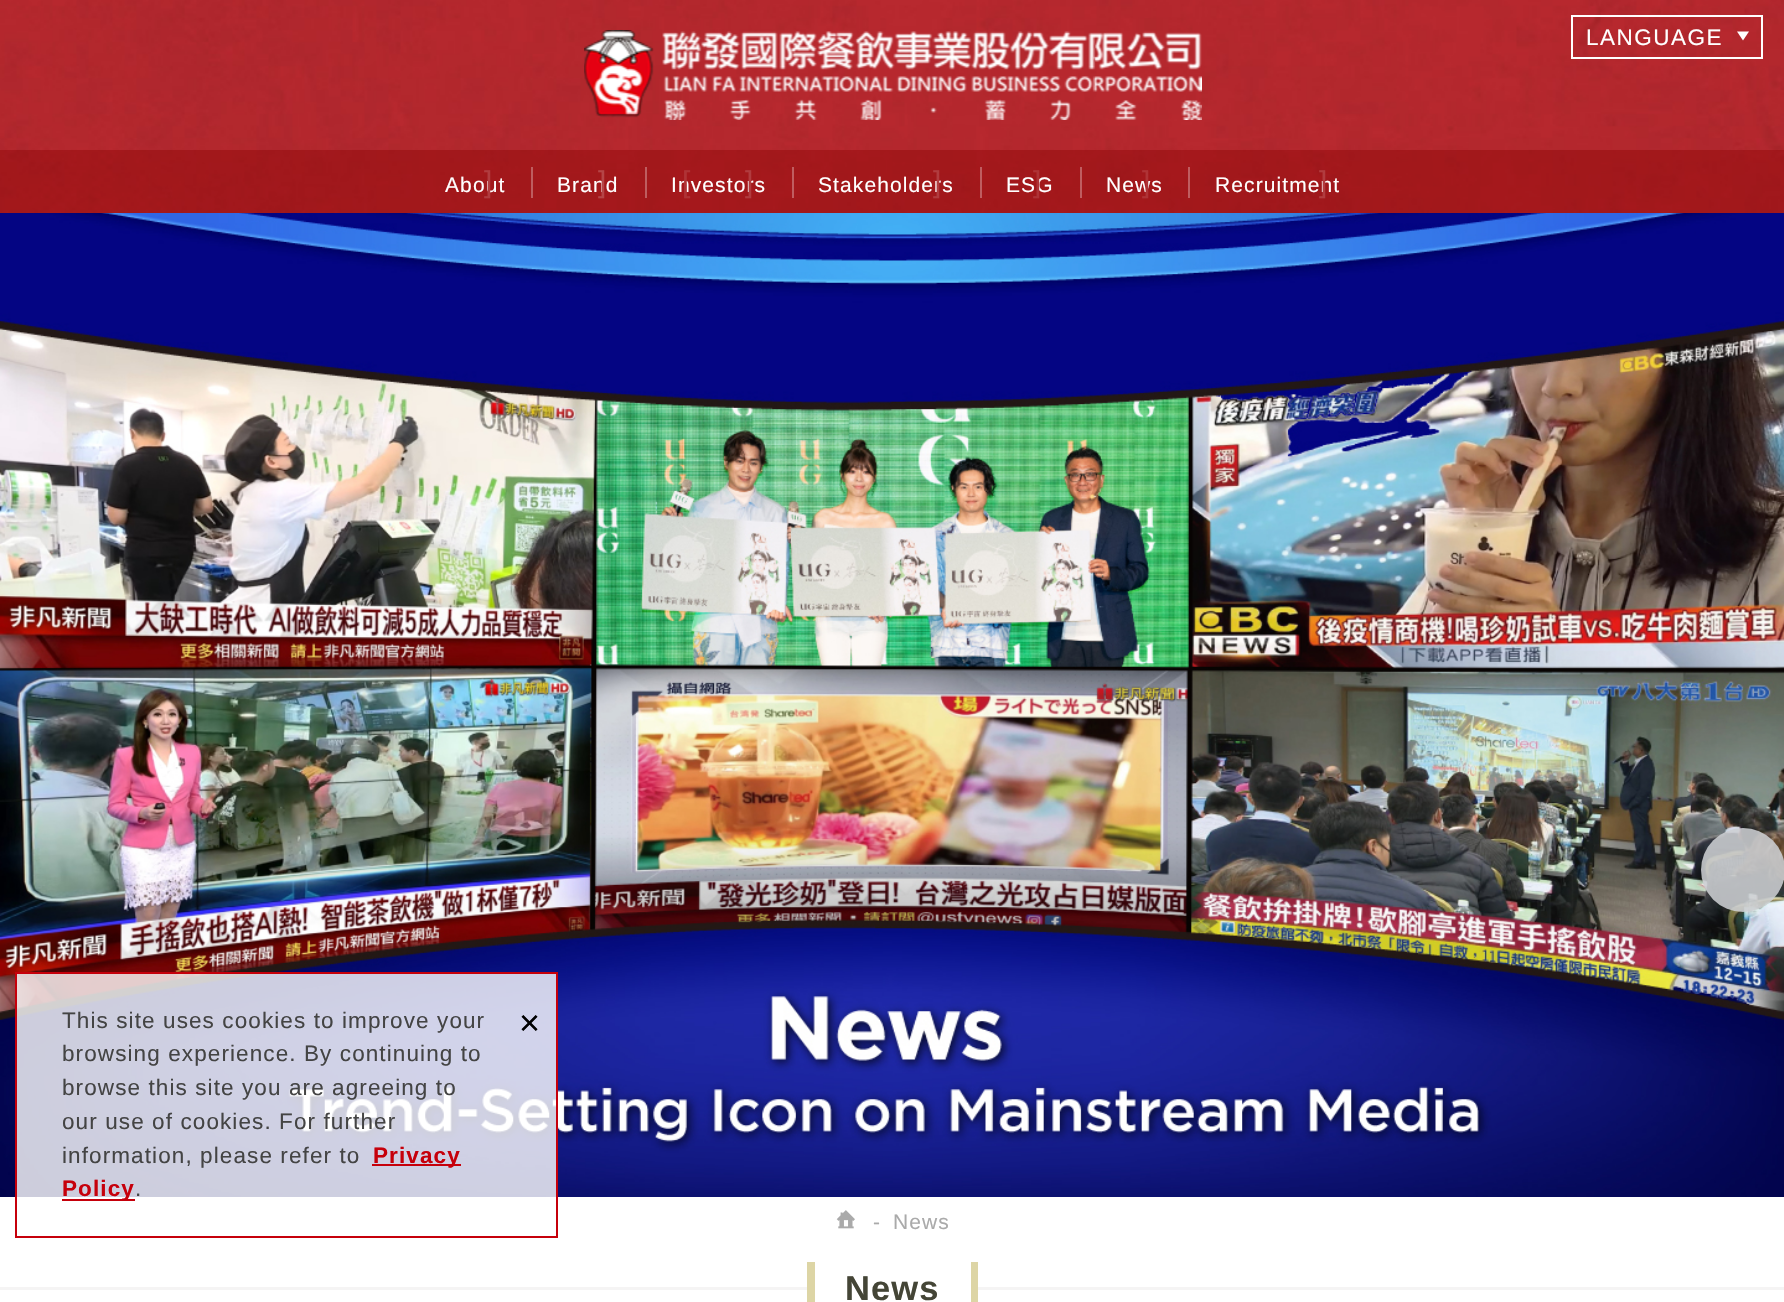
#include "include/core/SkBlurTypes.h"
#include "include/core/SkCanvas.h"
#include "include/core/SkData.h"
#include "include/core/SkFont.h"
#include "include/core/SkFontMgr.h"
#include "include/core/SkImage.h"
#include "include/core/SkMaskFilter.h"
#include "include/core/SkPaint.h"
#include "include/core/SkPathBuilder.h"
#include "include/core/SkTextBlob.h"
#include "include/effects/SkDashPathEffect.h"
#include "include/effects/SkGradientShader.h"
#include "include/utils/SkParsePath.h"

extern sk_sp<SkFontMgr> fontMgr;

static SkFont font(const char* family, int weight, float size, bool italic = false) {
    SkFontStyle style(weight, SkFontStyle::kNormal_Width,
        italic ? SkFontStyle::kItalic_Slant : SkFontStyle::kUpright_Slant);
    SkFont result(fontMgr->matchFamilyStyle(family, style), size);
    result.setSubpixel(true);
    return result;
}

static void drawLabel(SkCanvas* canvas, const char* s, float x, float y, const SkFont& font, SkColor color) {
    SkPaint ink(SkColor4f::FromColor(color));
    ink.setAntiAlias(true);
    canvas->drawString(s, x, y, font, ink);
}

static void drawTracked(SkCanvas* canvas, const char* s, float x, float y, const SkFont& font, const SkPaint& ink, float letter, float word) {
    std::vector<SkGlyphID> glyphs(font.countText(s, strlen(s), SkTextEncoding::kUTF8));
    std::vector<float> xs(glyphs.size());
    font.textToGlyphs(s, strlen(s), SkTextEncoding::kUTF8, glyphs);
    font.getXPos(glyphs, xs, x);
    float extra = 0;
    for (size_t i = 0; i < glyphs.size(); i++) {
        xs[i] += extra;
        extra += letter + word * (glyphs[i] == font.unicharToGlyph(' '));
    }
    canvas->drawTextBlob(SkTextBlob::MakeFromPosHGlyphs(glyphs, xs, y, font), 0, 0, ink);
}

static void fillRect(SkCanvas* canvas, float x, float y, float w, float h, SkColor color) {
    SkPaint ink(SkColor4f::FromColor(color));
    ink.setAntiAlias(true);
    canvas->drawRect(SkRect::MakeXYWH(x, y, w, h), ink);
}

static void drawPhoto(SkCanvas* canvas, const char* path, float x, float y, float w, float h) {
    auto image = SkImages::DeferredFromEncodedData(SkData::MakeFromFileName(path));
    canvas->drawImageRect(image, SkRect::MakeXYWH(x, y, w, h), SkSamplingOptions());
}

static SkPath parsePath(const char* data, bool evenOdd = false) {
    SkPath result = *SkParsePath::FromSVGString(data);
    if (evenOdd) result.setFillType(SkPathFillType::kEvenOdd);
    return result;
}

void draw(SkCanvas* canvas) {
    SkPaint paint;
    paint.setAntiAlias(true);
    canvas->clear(0xFFFFFFFF);
    drawPhoto(canvas, "assets/img1.png", 0, 0, 1784, 213);
    drawPhoto(canvas, "assets/img2.png", 584, 30, 618, 90);
    paint.setStroke(true);
    paint.setStrokeWidth(2);
    paint.setColor(0xFFFFFFFF);
    canvas->drawRect(SkRect::MakeXYWH(1572, 16, 190, 42), paint);
    SkFont font1 = font("Liberation Sans", 400, 22.5f);
    paint.setStroke(false);
    drawTracked(canvas, "LANGUAGE", 1586, 45, font1, paint, 1.5f, 0);
    canvas->drawPath(parsePath("M1737 31.5H1749L1743 40.5Z"), paint);
    fillRect(canvas, 0, 150, 1784, 63, 0x66890000);
    SkFont font2 = font("Liberation Sans", 400, 21);
    drawTracked(canvas, "About", 445, 192, font2, paint, 1.1f, 0);
    SkFont font3 = font("Liberation Sans", 400, 30);
    paint.setColor(0xFFB13C3F);
    drawTracked(canvas, "]", 484, 192, font3, paint, 1.1f, 0);
    fillRect(canvas, 531, 167, 2, 31, 0xFFBE5D5F);
    paint.setColor(0xFFFFFFFF);
    drawTracked(canvas, "Brand", 557, 192, font2, paint, 1.1f, 0);
    paint.setColor(0xFFB54547);
    drawTracked(canvas, "]", 598, 192, font3, paint, 1.1f, 0);
    fillRect(canvas, 645, 167, 2, 31, 0xFFBE5D5F);
    paint.setColor(0xFFFFFFFF);
    drawTracked(canvas, "Investors", 671, 192, font2, paint, 1.1f, 0);
    paint.setColor(0xFFAF3336);
    drawTracked(canvas, "[", 682, 192, font3, paint, 1.1f, 0);
    paint.setColor(0xFFB13C3F);
    drawTracked(canvas, "]", 745, 192, font3, paint, 1.1f, 0);
    fillRect(canvas, 792, 167, 2, 31, 0xFFC05D60);
    paint.setColor(0xFFFFFFFF);
    drawTracked(canvas, "Stakeholders", 818, 192, font2, paint, 1.1f, 0);
    paint.setColor(0xFFB13C3F);
    drawTracked(canvas, "]", 933, 192, font3, paint, 1.1f, 0);
    fillRect(canvas, 980, 167, 2, 31, 0xFFBF5D60);
    paint.setColor(0xFFFFFFFF);
    drawTracked(canvas, "ESG", 1006, 192, font2, paint, 1.1f, 0);
    paint.setColor(0xFFAF3336);
    drawTracked(canvas, "]", 1033, 192, font3, paint, 1.1f, 0);
    fillRect(canvas, 1080, 167, 2, 31, 0xFFBF5D60);
    paint.setColor(0xFFFFFFFF);
    drawTracked(canvas, "News", 1106, 192, font2, paint, 1.1f, 0);
    paint.setColor(0xFFAF3336);
    drawTracked(canvas, "]", 1142, 192, font3, paint, 1.1f, 0);
    fillRect(canvas, 1188, 167, 2, 31, 0xFFBF5D60);
    paint.setColor(0xFFFFFFFF);
    drawTracked(canvas, "Recruitment", 1215, 192, font2, paint, 1.1f, 0);
    paint.setColor(0xFFB13C3F);
    drawTracked(canvas, "]", 1319, 192, font3, paint, 1.1f, 0);
    drawPhoto(canvas, "assets/img3.png", 0, 213, 1784, 984);
    fillRect(canvas, 17, 974, 539, 223, 0xCCFFFFFF);
    paint.setStroke(true);
    paint.setColor(0xFFC6000B);
    canvas->drawRect(SkRect::MakeXYWH(16, 973, 541, 264), paint);
    paint.setStroke(false);
    paint.setColor(0xFF444444);
    drawTracked(canvas, "This site uses cookies to improve your", 62, 1028, font1, paint, 1.1f, 0);
    drawTracked(canvas, "browsing experience. By continuing to", 62, 1061, font1, paint, 1.1f, 0);
    drawTracked(canvas, "browse this site you are agreeing to", 62, 1095, font1, paint, 1.1f, 0);
    drawTracked(canvas, "our use of cookies. For further", 62, 1129, font1, paint, 1.1f, 0);
    drawTracked(canvas, "information, please refer to", 62, 1163, font1, paint, 1.1f, 0);
    fillRect(canvas, 372, 1164, 89, 2, 0xFFC6000B);
    SkFont font4 = font("Liberation Sans", 700, 22.5f);
    paint.setColor(0xFFC6000B);
    drawTracked(canvas, "Privacy", 373, 1163, font4, paint, 1.1f, 0);
    fillRect(canvas, 62, 1199, 73, 2, 0xFFC6000B);
    drawTracked(canvas, "Policy", 62, 1196, font4, paint, 1.1f, 0);
    paint.setColor(0xFF444444);
    drawTracked(canvas, ".", 135, 1196, font1, paint, 1.1f, 0);
    SkFont font5 = font("Liberation Sans", 400, 36);
    drawLabel(canvas, "×", 519, 1035, font5, 0xFF000000);
    drawPhoto(canvas, "assets/img4.png", 836, 1210, 19, 19);
    paint.setColor(0xFFAAAAAA);
    drawTracked(canvas, "-", 873, 1229, font2, paint, 1.1f, 0);
    drawTracked(canvas, "News", 893, 1229, font2, paint, 1.1f, 0);
    fillRect(canvas, 971, 1287, 813, 3, 0xFFF5F4F4);
    fillRect(canvas, 971, 1262, 7, 40, 0xFFDDD5A5);
    fillRect(canvas, 0, 1287, 815, 3, 0xFFF5F4F4);
    fillRect(canvas, 807, 1262, 8, 40, 0xFFDDD5A5);
    SkFont font6 = font("Liberation Sans", 700, 34.5f);
    paint.setColor(0xFF444536);
    drawTracked(canvas, "News", 845, 1300, font6, paint, 1.1f, 0);
    paint.setColor(0xDECCCFD2);
    canvas->drawCircle(1743, 870, 42, paint);
}
